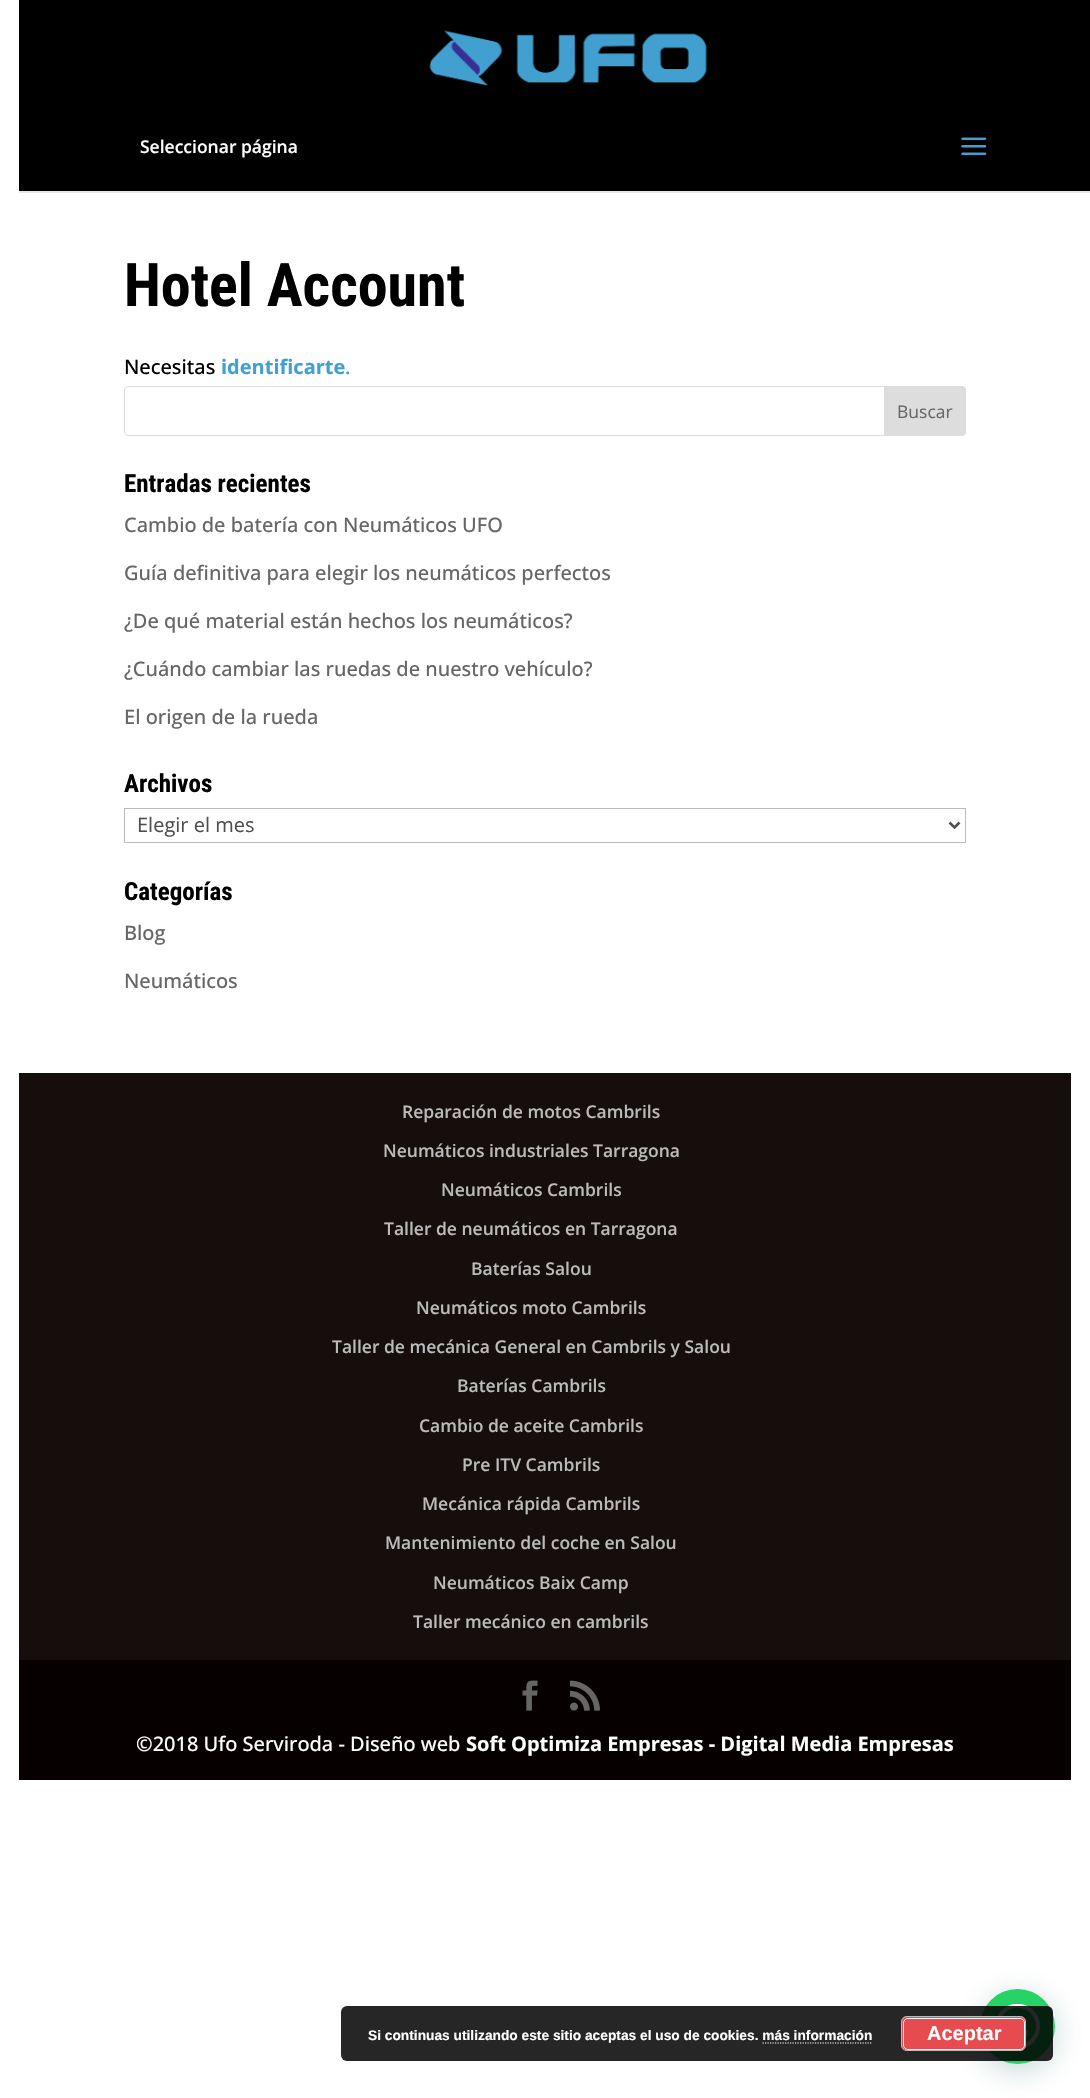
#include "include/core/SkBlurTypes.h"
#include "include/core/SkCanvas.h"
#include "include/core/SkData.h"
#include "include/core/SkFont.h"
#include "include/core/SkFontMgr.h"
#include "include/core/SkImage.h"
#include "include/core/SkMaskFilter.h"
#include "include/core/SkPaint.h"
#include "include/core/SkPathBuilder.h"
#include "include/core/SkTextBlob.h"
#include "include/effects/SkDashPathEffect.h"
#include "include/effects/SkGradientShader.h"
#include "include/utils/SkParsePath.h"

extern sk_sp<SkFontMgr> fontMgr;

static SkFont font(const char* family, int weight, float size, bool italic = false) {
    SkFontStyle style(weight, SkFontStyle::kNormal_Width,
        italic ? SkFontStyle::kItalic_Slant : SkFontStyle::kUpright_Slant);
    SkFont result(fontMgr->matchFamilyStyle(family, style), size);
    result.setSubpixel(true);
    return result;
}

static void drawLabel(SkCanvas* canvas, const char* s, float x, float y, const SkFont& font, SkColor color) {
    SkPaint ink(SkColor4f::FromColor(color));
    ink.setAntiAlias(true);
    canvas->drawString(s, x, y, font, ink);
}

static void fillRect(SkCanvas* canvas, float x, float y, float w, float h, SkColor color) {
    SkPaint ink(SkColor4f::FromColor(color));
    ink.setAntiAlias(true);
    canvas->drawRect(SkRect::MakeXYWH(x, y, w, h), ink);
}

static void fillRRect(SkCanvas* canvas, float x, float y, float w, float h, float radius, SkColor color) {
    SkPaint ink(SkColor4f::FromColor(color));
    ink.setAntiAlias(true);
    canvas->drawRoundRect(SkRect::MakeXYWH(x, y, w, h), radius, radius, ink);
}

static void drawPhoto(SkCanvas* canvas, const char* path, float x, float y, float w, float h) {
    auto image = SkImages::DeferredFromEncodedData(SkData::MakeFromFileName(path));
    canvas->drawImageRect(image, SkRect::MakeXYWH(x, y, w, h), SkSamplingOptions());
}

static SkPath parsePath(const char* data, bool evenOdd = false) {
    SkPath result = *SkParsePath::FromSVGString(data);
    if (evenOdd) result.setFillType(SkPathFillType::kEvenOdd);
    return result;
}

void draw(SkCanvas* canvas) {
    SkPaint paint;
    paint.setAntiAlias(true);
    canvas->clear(0xFFFFFFFF);
    paint.setColor(0xFFE6E6E6);
    canvas->drawPath(parsePath("M19 191V193H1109V1V191Z"), paint);
    fillRect(canvas, 19, 0, 1071, 191, 0xFF000000);
    drawPhoto(canvas, "assets/img1.png", 429, 30, 278, 56);
    SkFont font1 = font("Open Sans", 600, 17.5f);
    drawLabel(canvas, "Seleccionar página", 140, 153, font1, 0xFFFFFFFF);
    drawPhoto(canvas, "assets/img2.png", 961, 137, 26, 18);
    SkFont font2 = font("Roboto Condensed", 700, 60);
    drawLabel(canvas, "Hotel Account", 124, 306, font2, 0xFF000000);
    SkFont font3 = font("Open Sans", 500, 20);
    drawLabel(canvas, "Necesitas", 124, 374, font3, 0xFF000000);
    SkFont font4 = font("Open Sans", 700, 20);
    drawLabel(canvas, "identificarte", 221, 374, font4, 0xFF42A0D0);
    drawLabel(canvas, ".", 345, 374, font3, 0xFF42A0D0);
    paint.setStroke(true);
    paint.setStrokeWidth(1);
    paint.setColor(0xFFDDDDDD);
    canvas->drawRoundRect(SkRect::MakeXYWH(124.5f, 386.5f, 841, 49), 3.5f, 3.5f, paint);
    paint.setStroke(false);
    canvas->drawPath(parsePath("M884.5 386.5H962C964 386.5 965.5 388 965.5 390V432C965.5 434 964 435.5 962 435.5H884.5Z"), paint);
    paint.setStroke(true);
    canvas->drawPath(parsePath("M884.5 386.5H962C964 386.5 965.5 388 965.5 390V432C965.5 434 964 435.5 962 435.5H884.5Z"), paint);
    SkFont font5 = font("Open Sans", 400, 17.5f);
    drawLabel(canvas, "Buscar", 897, 418, font5, 0xFF666666);
    SkFont font6 = font("Roboto Condensed", 700, 25);
    drawLabel(canvas, "Entradas recientes", 124, 492, font6, 0xFF000000);
    drawLabel(canvas, "Cambio de batería con Neumáticos UFO", 124, 532, font3, 0xFF666666);
    drawLabel(canvas, "Guía definitiva para elegir los neumáticos perfectos", 124, 580, font3, 0xFF666666);
    drawLabel(canvas, "¿De qué material están hechos los neumáticos?", 124, 628, font3, 0xFF666666);
    drawLabel(canvas, "¿Cuándo cambiar las ruedas de nuestro vehículo?", 124, 676, font3, 0xFF666666);
    drawLabel(canvas, "El origen de la rueda", 124, 724, font3, 0xFF666666);
    drawLabel(canvas, "Archivos", 124, 792, font6, 0xFF000000);
    paint.setColor(0xFFBBBBBB);
    canvas->drawRect(SkRect::MakeXYWH(124.5f, 808.5f, 841, 34), paint);
    paint.setStrokeWidth(2.5f);
    paint.setColor(0xFF4E4E4E);
    canvas->drawPath(parsePath("M949.5 822.5L954.5 827.5L959.5 822.5"), paint);
    SkFont font7 = font("Open Sans", 400, 20);
    drawLabel(canvas, "Elegir el mes", 137, 832, font7, 0xFF4E4E4E);
    drawLabel(canvas, "Categorías", 124, 900, font6, 0xFF000000);
    drawLabel(canvas, "Blog", 124, 940, font3, 0xFF666666);
    drawLabel(canvas, "Neumáticos", 124, 988, font3, 0xFF666666);
    fillRect(canvas, 19, 1073, 1052, 587, 0xFF160D0D);
    drawLabel(canvas, "Reparación de motos Cambrils", 402, 1118, font1, 0xFFBBBBBB);
    drawLabel(canvas, "Neumáticos industriales Tarragona", 383, 1157, font1, 0xFFBBBBBB);
    drawLabel(canvas, "Neumáticos Cambrils", 441, 1196, font1, 0xFFBBBBBB);
    drawLabel(canvas, "Taller de neumáticos en Tarragona", 384, 1235, font1, 0xFFBBBBBB);
    drawLabel(canvas, "Baterías Salou", 471, 1275, font1, 0xFFBBBBBB);
    drawLabel(canvas, "Neumáticos moto Cambrils", 416, 1314, font1, 0xFFBBBBBB);
    drawLabel(canvas, "Taller de mecánica General en Cambrils y Salou", 332, 1353, font1, 0xFFBBBBBB);
    drawLabel(canvas, "Baterías Cambrils", 457, 1392, font1, 0xFFBBBBBB);
    drawLabel(canvas, "Cambio de aceite Cambrils", 419, 1432, font1, 0xFFBBBBBB);
    drawLabel(canvas, "Pre ITV Cambrils", 462, 1471, font1, 0xFFBBBBBB);
    drawLabel(canvas, "Mecánica rápida Cambrils", 422, 1510, font1, 0xFFBBBBBB);
    drawLabel(canvas, "Mantenimiento del coche en Salou", 385, 1549, font1, 0xFFBBBBBB);
    drawLabel(canvas, "Neumáticos Baix Camp", 433, 1589, font1, 0xFFBBBBBB);
    drawLabel(canvas, "Taller mecánico en cambrils", 413, 1628, font1, 0xFFBBBBBB);
    fillRect(canvas, 19, 1660, 1052, 120, 0xFF070000);
    drawPhoto(canvas, "assets/img3.png", 522, 1680, 16, 31);
    drawPhoto(canvas, "assets/img4.png", 570, 1680, 30, 31);
    drawLabel(canvas, "©2018 Ufo Serviroda - Diseño web", 136, 1751, font3, 0xFFFFFFFF);
    drawLabel(canvas, "Soft Optimiza Empresas - Digital Media Empresas", 466, 1751, font4, 0xFFFFFFFF);
    paint.setStroke(false);
    paint.setColor(0x3D075E54);
    paint.setMaskFilter(SkMaskFilter::MakeBlur(kNormal_SkBlurStyle, 15));
    canvas->drawRoundRect(SkRect::MakeXYWH(981, 1996, 75, 75), 37.5f, 37.5f, paint);
    paint.setMaskFilter(nullptr);
    paint.setColor(0xFF25D366);
    canvas->drawCircle(1017.5f, 2026.5f, 37.5f, paint);
    drawPhoto(canvas, "assets/img5.png", 997, 2004, 43, 44);
    fillRRect(canvas, 341, 2006, 712, 55, 6, 0xD9000000);
    SkFont font8 = font("Liberation Sans", 700, 13.75f);
    drawLabel(canvas, "Si continuas utilizando este sitio aceptas el uso de cookies. más información", 368, 2040, font8, 0xFFFFFFFF);
    fillRRect(canvas, 901, 2016, 125, 35, 6, 0xFFE64B50);
    paint.setStroke(true);
    paint.setStrokeWidth(1);
    paint.setColor(0xFFF6F6F6);
    canvas->drawRoundRect(SkRect::MakeXYWH(903.5f, 2018.5f, 121, 31), 4.5f, 4.5f, paint);
    paint.setColor(0xFFBBBBBB);
    canvas->drawRoundRect(SkRect::MakeXYWH(901.5f, 2016.5f, 124, 34), 5.5f, 5.5f, paint);
    SkFont font9 = font("Liberation Sans", 700, 20);
    drawLabel(canvas, "Aceptar", 927, 2040, font9, 0xFFFFFFFF);
    paint.setStrokeWidth(1.2f);
    paint.setColor(0xFFFFFFFF);
    paint.setPathEffect(SkDashPathEffect::Make({{1.25f, 1.25f}}, 0));
    canvas->drawPath(parsePath("M762.5 2043H872.5"), paint);
    paint.setPathEffect(nullptr);
}
